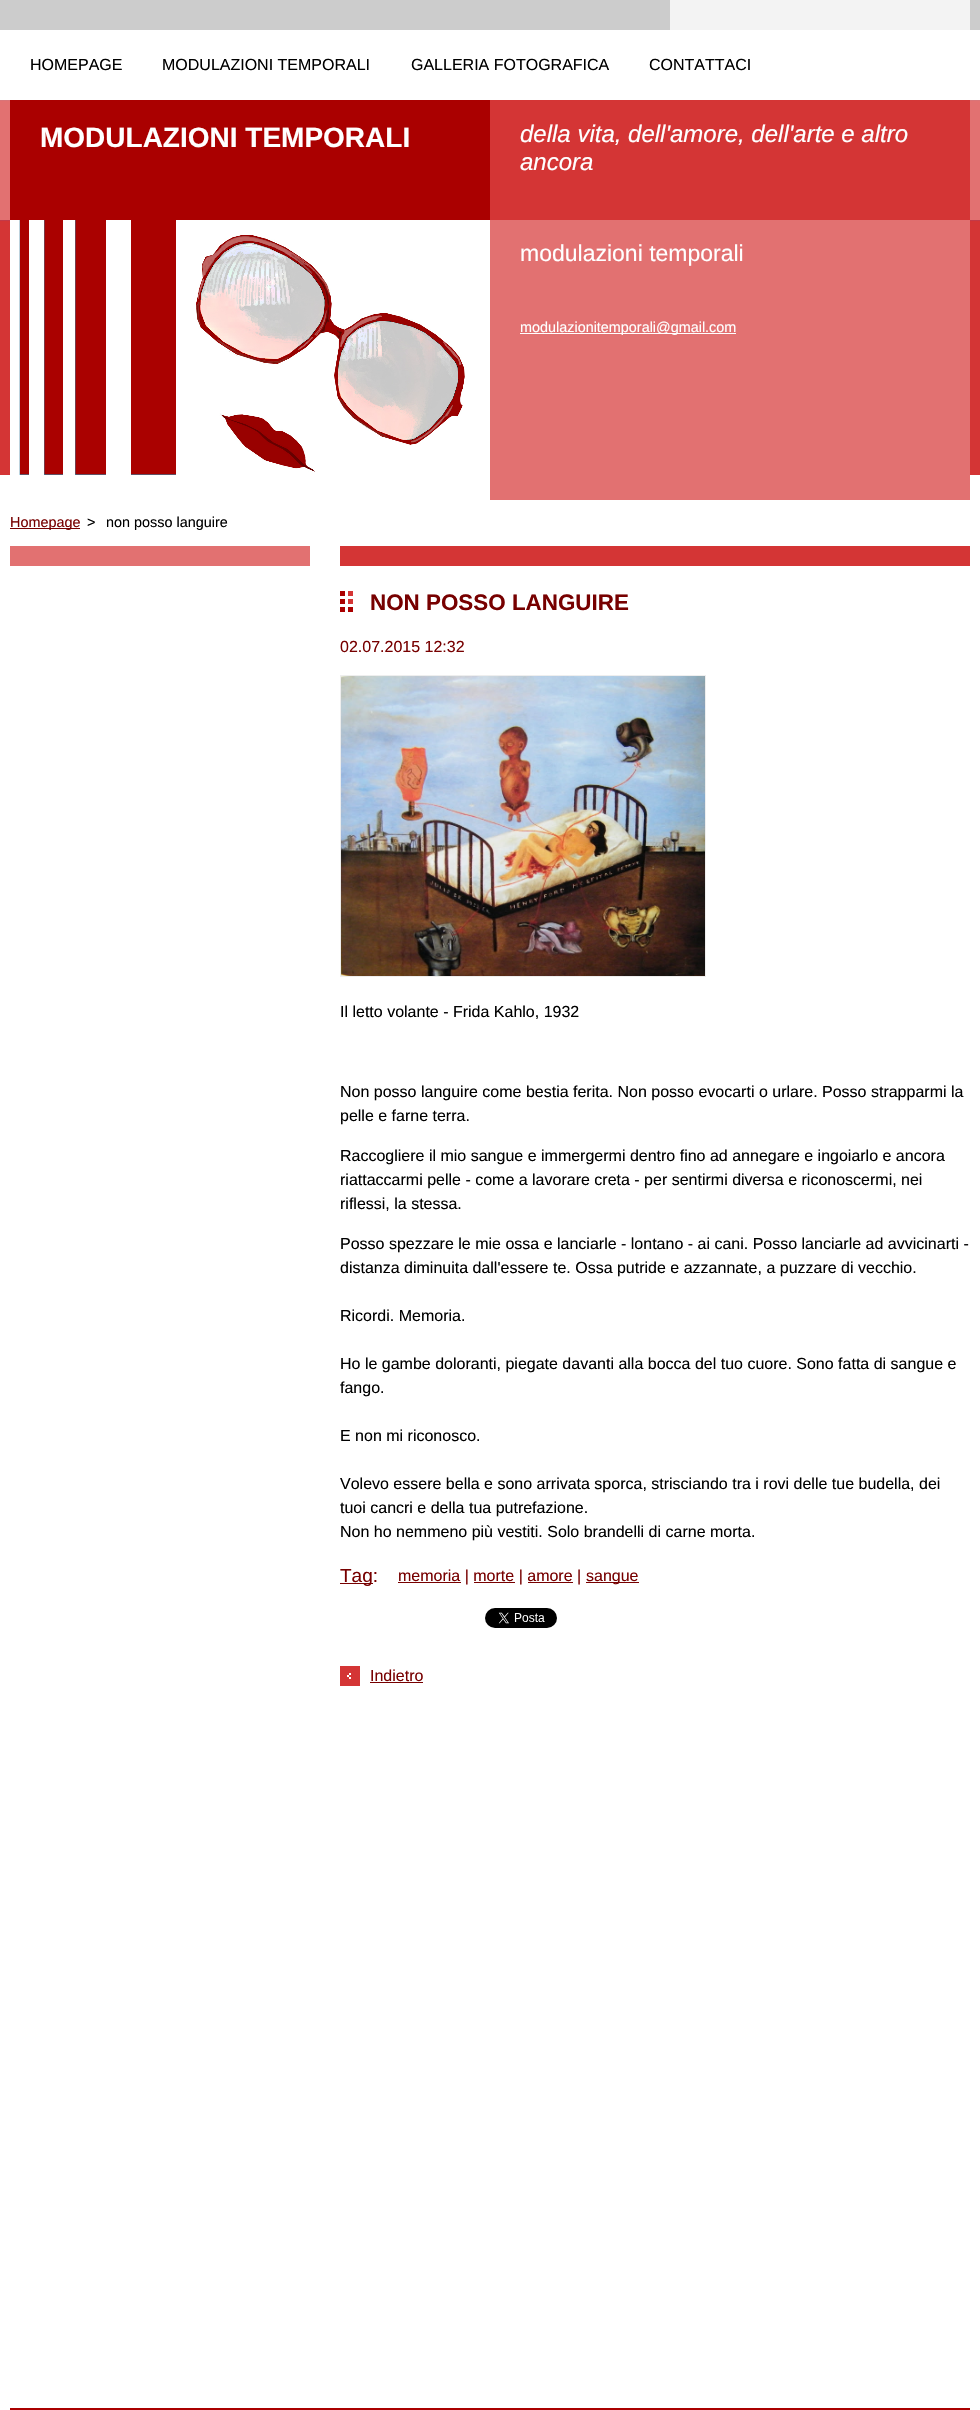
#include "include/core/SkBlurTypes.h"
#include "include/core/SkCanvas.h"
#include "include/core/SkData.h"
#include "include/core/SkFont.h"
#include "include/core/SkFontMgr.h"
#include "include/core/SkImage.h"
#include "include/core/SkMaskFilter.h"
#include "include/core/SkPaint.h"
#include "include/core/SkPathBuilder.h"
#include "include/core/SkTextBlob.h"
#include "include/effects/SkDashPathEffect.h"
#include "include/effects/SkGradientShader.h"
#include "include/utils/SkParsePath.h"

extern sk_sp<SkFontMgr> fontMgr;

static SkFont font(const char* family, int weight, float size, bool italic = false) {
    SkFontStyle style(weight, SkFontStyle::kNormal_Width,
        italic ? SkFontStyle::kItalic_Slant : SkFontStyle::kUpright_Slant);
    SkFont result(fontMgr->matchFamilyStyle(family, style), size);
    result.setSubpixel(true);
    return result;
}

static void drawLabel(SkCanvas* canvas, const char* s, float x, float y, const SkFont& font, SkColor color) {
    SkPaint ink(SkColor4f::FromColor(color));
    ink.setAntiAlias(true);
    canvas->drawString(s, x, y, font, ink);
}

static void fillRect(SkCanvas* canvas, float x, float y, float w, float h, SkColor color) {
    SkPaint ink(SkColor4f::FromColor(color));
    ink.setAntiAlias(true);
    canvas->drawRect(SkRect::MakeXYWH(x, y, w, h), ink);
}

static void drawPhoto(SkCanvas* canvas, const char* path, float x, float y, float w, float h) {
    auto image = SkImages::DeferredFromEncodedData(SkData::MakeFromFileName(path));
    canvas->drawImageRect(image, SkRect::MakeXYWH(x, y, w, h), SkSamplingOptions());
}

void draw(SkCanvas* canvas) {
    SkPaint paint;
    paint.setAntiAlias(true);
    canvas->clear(0xFFFFFFFF);
    drawPhoto(canvas, "assets/img1.png", 0, 0, 980, 475);
    fillRect(canvas, 670, 0, 300, 30, 0xFFF3F3F3);
    SkFont font1 = font("Liberation Sans", 400, 16);
    drawLabel(canvas, "HOMEPAGE", 30, 70, font1, 0xFF000000);
    drawLabel(canvas, "MODULAZIONI TEMPORALI", 162, 70, font1, 0xFF000000);
    drawLabel(canvas, "GALLERIA FOTOGRAFICA", 411, 70, font1, 0xFF000000);
    drawLabel(canvas, "CONTATTACI", 649, 70, font1, 0xFF000000);
    fillRect(canvas, 10, 100, 480, 120, 0xFFAA0000);
    SkFont font2 = font("Liberation Sans", 700, 28);
    drawLabel(canvas, "MODULAZIONI TEMPORALI", 40, 147, font2, 0xFFFFFFFF);
    fillRect(canvas, 490, 100, 480, 120, 0xFFD43535);
    SkFont font3 = font("Liberation Sans", 400, 24, true);
    drawLabel(canvas, "della vita, dell'amore, dell'arte e altro", 520, 142, font3, 0xFFFFFFFF);
    drawLabel(canvas, "ancora", 520, 170, font3, 0xFFFFFFFF);
    fillRect(canvas, 10, 220, 480, 255, 0xFFFFFFFF);
    drawPhoto(canvas, "assets/img2.png", 19, 220, 446, 255);
    fillRect(canvas, 490, 220, 480, 280, 0xFFE27171);
    SkFont font4 = font("Liberation Sans", 400, 23);
    drawLabel(canvas, "modulazioni temporali", 520, 261, font4, 0xFFFFFFFF);
    fillRect(canvas, 520, 333, 216, 1, 0xFFFFFFFF);
    SkFont font5 = font("Liberation Sans", 400, 14.4f);
    drawLabel(canvas, "modulazionitemporali@gmail.com", 520, 332, font5, 0xFFFFFFFF);
    fillRect(canvas, 10, 528, 70, 1, 0xFF770000);
    drawLabel(canvas, "Homepage", 10, 527, font5, 0xFF770000);
    drawLabel(canvas, ">", 87, 527, font5, 0xFF000000);
    drawLabel(canvas, "non posso languire", 106, 527, font5, 0xFF000000);
    fillRect(canvas, 10, 546, 300, 20, 0xFFE27171);
    fillRect(canvas, 340, 546, 630, 20, 0xFFD43535);
    drawPhoto(canvas, "assets/img3.png", 340, 591, 13, 21);
    SkFont font6 = font("Liberation Sans", 700, 22.4f);
    drawLabel(canvas, "NON POSSO LANGUIRE", 370, 610, font6, 0xFF770000);
    drawLabel(canvas, "02.07.2015 12:32", 340, 652, font1, 0xFF770000);
    paint.setStroke(true);
    paint.setStrokeWidth(1);
    paint.setColor(0xFFEEEEEE);
    canvas->drawRect(SkRect::MakeXYWH(340.5f, 675.5f, 365, 301), paint);
    drawPhoto(canvas, "assets/img4.png", 341, 676, 364, 300);
    drawLabel(canvas, "Il letto volante - Frida Kahlo, 1932", 340, 1017, font1, 0xFF000000);
    drawLabel(canvas, "Non posso languire come bestia ferita. Non posso evocarti o urlare. Posso strapparmi la", 340, 1097, font1, 0xFF000000);
    drawLabel(canvas, "pelle e farne terra.", 340, 1121, font1, 0xFF000000);
    drawLabel(canvas, "Raccogliere il mio sangue e immergermi dentro fino ad annegare e ingoiarlo e ancora", 340, 1161, font1, 0xFF000000);
    drawLabel(canvas, "riattaccarmi pelle - come a lavorare creta - per sentirmi diversa e riconoscermi, nei", 340, 1185, font1, 0xFF000000);
    drawLabel(canvas, "riflessi, la stessa.", 340, 1209, font1, 0xFF000000);
    drawLabel(canvas, "Posso spezzare le mie ossa e lanciarle - lontano - ai cani. Posso lanciarle ad avvicinarti -", 340, 1249, font1, 0xFF000000);
    drawLabel(canvas, "distanza diminuita dall'essere te. Ossa putride e azzannate, a puzzare di vecchio.", 340, 1273, font1, 0xFF000000);
    drawLabel(canvas, "Ricordi. Memoria.", 340, 1321, font1, 0xFF000000);
    drawLabel(canvas, "Ho le gambe doloranti, piegate davanti alla bocca del tuo cuore. Sono fatta di sangue e", 340, 1369, font1, 0xFF000000);
    drawLabel(canvas, "fango.", 340, 1393, font1, 0xFF000000);
    drawLabel(canvas, "E non mi riconosco.", 340, 1441, font1, 0xFF000000);
    drawLabel(canvas, "Volevo essere bella e sono arrivata sporca, strisciando tra i rovi delle tue budella, dei", 340, 1489, font1, 0xFF000000);
    drawLabel(canvas, "tuoi cancri e della tua putrefazione.", 340, 1513, font1, 0xFF000000);
    drawLabel(canvas, "Non ho nemmeno più vestiti. Solo brandelli di carne morta.", 340, 1537, font1, 0xFF000000);
    fillRect(canvas, 340, 1583, 33, 1, 0xFF770000);
    SkFont font7 = font("Liberation Sans", 400, 19);
    drawLabel(canvas, "Tag:", 340, 1582, font7, 0xFF770000);
    fillRect(canvas, 398, 1582, 63, 1, 0xFF770000);
    drawLabel(canvas, "memoria | morte | amore |", 398, 1581, font1, 0xFF770000);
    fillRect(canvas, 586, 1582, 53, 1, 0xFF770000);
    drawLabel(canvas, "sangue", 586, 1581, font1, 0xFF770000);
    fillRect(canvas, 474, 1582, 41, 1, 0xFF770000);
    fillRect(canvas, 528, 1582, 45, 1, 0xFF770000);
    drawPhoto(canvas, "assets/img5.png", 485, 1608, 72, 20);
    drawPhoto(canvas, "assets/img6.png", 340, 1666, 20, 20);
    drawLabel(canvas, "Indietro", 370, 1681, font1, 0xFF770000);
    fillRect(canvas, 370, 1682, 53, 1, 0xFF770000);
    fillRect(canvas, 10, 2408, 960, 2, 0xFFAA0000);
}
